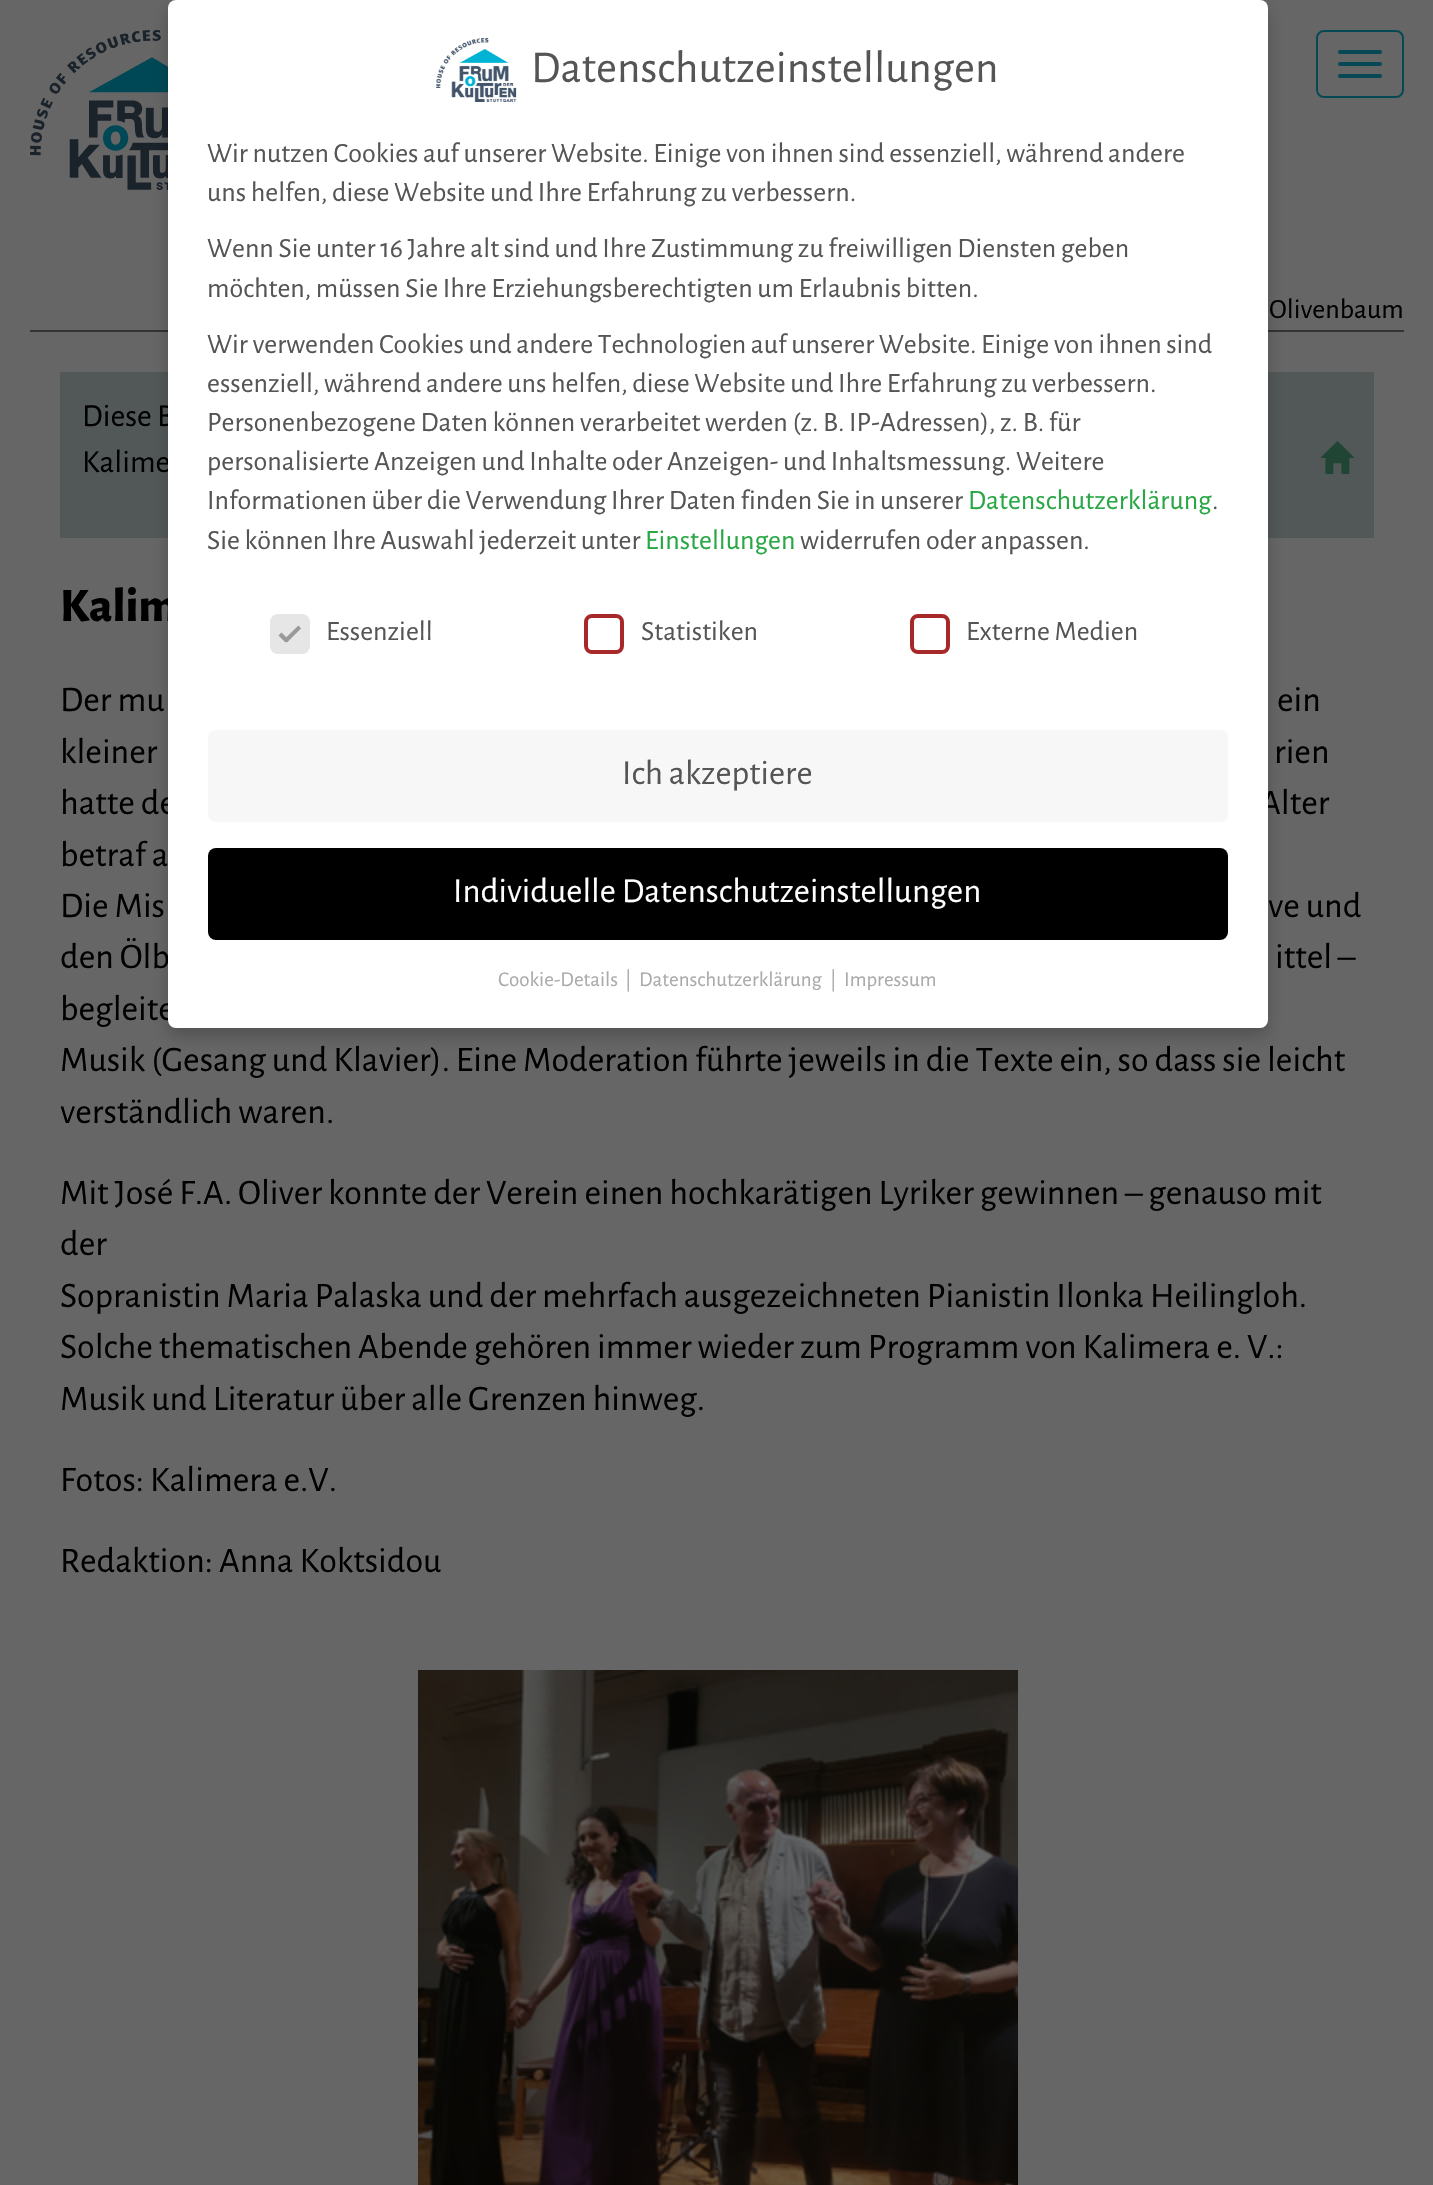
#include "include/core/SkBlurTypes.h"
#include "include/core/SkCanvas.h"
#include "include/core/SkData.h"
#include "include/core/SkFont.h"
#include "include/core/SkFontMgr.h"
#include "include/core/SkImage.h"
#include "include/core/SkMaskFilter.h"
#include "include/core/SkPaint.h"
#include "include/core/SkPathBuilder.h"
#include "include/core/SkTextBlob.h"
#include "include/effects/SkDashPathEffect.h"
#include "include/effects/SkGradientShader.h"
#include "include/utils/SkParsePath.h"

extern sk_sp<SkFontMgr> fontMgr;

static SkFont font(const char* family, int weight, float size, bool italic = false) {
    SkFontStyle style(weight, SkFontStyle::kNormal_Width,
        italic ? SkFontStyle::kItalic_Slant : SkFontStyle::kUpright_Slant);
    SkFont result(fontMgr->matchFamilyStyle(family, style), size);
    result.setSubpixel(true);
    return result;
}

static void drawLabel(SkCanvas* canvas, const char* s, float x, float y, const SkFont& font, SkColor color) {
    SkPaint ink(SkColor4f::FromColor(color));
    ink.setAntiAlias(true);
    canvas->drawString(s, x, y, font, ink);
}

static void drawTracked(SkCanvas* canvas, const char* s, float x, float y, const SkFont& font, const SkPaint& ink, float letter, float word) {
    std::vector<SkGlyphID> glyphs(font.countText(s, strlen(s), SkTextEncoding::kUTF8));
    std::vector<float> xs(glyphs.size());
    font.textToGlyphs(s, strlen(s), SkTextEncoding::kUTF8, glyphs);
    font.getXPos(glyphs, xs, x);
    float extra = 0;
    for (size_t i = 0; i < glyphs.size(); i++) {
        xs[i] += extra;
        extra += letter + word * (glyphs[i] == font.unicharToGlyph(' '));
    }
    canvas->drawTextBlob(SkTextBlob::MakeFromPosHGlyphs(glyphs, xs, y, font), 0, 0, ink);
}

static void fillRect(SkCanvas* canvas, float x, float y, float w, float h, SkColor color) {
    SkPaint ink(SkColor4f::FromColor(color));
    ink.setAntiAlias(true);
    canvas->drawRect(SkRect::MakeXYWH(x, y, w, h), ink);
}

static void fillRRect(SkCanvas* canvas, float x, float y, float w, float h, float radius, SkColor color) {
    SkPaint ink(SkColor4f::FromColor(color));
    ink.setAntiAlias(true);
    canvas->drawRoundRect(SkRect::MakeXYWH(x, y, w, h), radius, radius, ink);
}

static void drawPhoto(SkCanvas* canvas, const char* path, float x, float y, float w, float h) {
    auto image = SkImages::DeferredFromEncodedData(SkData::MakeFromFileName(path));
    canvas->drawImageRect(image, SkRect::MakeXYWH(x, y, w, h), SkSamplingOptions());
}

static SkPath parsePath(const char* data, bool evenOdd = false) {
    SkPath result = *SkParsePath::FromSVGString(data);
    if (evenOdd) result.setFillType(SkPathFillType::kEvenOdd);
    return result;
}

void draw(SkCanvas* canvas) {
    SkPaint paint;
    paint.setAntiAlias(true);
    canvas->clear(0xFF666666);
    drawPhoto(canvas, "assets/img1.png", 30, 30, 138, 160);
    paint.setStroke(true);
    paint.setStrokeWidth(2);
    paint.setColor(0xFF074855);
    canvas->drawRoundRect(SkRect::MakeXYWH(1317, 31, 86, 66), 7, 7, paint);
    fillRRect(canvas, 1338, 50, 44, 4, 2, 0xFF074855);
    fillRRect(canvas, 1338, 62, 44, 4, 2, 0xFF074855);
    fillRRect(canvas, 1338, 74, 44, 4, 2, 0xFF074855);
    fillRect(canvas, 30, 330, 1374, 2, 0xFF333333);
    fillRect(canvas, 60, 372, 1314, 166, 0xFF525858);
    paint.setStroke(false);
    paint.setColor(0x33000000);
    paint.setMaskFilter(SkMaskFilter::MakeBlur(kNormal_SkBlurStyle, 8));
    canvas->drawRoundRect(SkRect::MakeXYWH(168, 8, 1100, 1028), 8, 8, paint);
    paint.setMaskFilter(nullptr);
    SkFont font1 = font("Alegreya Sans", 400, 32);
    drawLabel(canvas, "Diese B", 82, 426, font1, 0xFF000000);
    drawLabel(canvas, "Kalime", 82, 472, font1, 0xFF000000);
    SkFont font2 = font("Alegreya Sans", 800, 48);
    paint.setColor(0xFF000000);
    drawTracked(canvas, "Kalim", 60, 621, font2, paint, 0, 6);
    SkFont font3 = font("Alegreya Sans", 400, 36);
    drawLabel(canvas, "hatte de", 60, 814, font3, 0xFF000000);
    drawLabel(canvas, "Alter", 1260, 814, font3, 0xFF000000);
    drawLabel(canvas, "den Ölb", 60, 968, font3, 0xFF000000);
    drawLabel(canvas, "begleite", 60, 1020, font3, 0xFF000000);
    fillRRect(canvas, 168, 0, 1100, 1028, 8, 0xFFFFFFFF);
    drawPhoto(canvas, "assets/img2.png", 436, 37, 81, 66);
    SkFont font4 = font("Alegreya Sans", 400, 45.5f);
    drawLabel(canvas, "Datenschutzeinstellungen", 531, 82, font4, 0xFF555555);
    SkFont font5 = font("Alegreya Sans", 400, 28);
    drawLabel(canvas, "Wir nutzen Cookies auf unserer Website. Einige von ihnen sind essenziell, während andere", 207, 162, font5, 0xFF555555);
    drawLabel(canvas, "uns helfen, diese Website und Ihre Erfahrung zu verbessern.", 207, 201, font5, 0xFF555555);
    drawLabel(canvas, "Wenn Sie unter 16 Jahre alt sind und Ihre Zustimmung zu freiwilligen Diensten geben", 207, 257, font5, 0xFF555555);
    drawLabel(canvas, "möchten, müssen Sie Ihre Erziehungsberechtigten um Erlaubnis bitten.", 207, 297, font5, 0xFF555555);
    drawLabel(canvas, "Wir verwenden Cookies und andere Technologien auf unserer Website. Einige von ihnen sind", 207, 353, font5, 0xFF555555);
    drawLabel(canvas, "essenziell, während andere uns helfen, diese Website und Ihre Erfahrung zu verbessern.", 207, 392, font5, 0xFF555555);
    drawLabel(canvas, "Personenbezogene Daten können verarbeitet werden (z. B. IP-Adressen), z. B. für", 207, 431, font5, 0xFF555555);
    drawLabel(canvas, "personalisierte Anzeigen und Inhalte oder Anzeigen- und Inhaltsmessung. Weitere", 207, 470, font5, 0xFF555555);
    drawLabel(canvas, "Informationen über die Verwendung Ihrer Daten finden Sie in unserer", 207, 509, font5, 0xFF555555);
    drawLabel(canvas, "Datenschutzerklärung", 968, 509, font5, 0xFF28A745);
    drawLabel(canvas, ".", 1212, 509, font5, 0xFF555555);
    drawLabel(canvas, "Sie können Ihre Auswahl jederzeit unter", 207, 549, font5, 0xFF555555);
    drawLabel(canvas, "Einstellungen", 645, 549, font5, 0xFF28A745);
    drawLabel(canvas, "widerrufen oder anpassen.", 800, 549, font5, 0xFF555555);
    paint.setColor(0xFFE6E6E6);
    canvas->drawRoundRect(SkRect::MakeXYWH(272, 616, 36, 36), 6, 6, paint);
    paint.setStroke(true);
    paint.setStrokeWidth(4);
    canvas->drawRoundRect(SkRect::MakeXYWH(272, 616, 36, 36), 6, 6, paint);
    paint.setStroke(false);
    paint.setColor(0xFF999999);
    canvas->drawPath(parsePath("M298.5 625.5L301 628.5L287 642.5L284 639.5Z"), paint);
    canvas->drawPath(parsePath("M281.5 632.5L288.5 639.5L285.5 642.5L278.5 635.5Z"), paint);
    drawLabel(canvas, "Essenziell", 326, 640, font5, 0xFF555555);
    paint.setStroke(true);
    paint.setColor(0xFFA72828);
    canvas->drawRoundRect(SkRect::MakeXYWH(586, 616, 36, 36), 6, 6, paint);
    drawLabel(canvas, "Statistiken", 641, 640, font5, 0xFF555555);
    canvas->drawRoundRect(SkRect::MakeXYWH(912, 616, 36, 36), 6, 6, paint);
    drawLabel(canvas, "Externe Medien", 966, 640, font5, 0xFF555555);
    fillRRect(canvas, 208, 730, 1020, 92, 8, 0xFFF7F7F7);
    SkFont font6 = font("Alegreya Sans", 400, 35);
    drawLabel(canvas, "Ich akzeptiere", 622, 784, font6, 0xFF555555);
    fillRRect(canvas, 208, 848, 1020, 92, 8, 0xFF000000);
    drawLabel(canvas, "Individuelle Datenschutzeinstellungen", 453, 902, font6, 0xFFFFFFFF);
    SkFont font7 = font("Alegreya Sans", 400, 21);
    drawLabel(canvas, "Cookie-Details", 498, 986, font7, 0xFFAAAAAA);
    drawLabel(canvas, "|", 625, 986, font7, 0xFFAAAAAA);
    drawLabel(canvas, "Datenschutzerklärung", 639, 986, font7, 0xFFAAAAAA);
    drawLabel(canvas, "|", 830, 986, font7, 0xFFAAAAAA);
    drawLabel(canvas, "Impressum", 844, 986, font7, 0xFFAAAAAA);
    drawLabel(canvas, "Olivenbaum", 1269, 318, font5, 0xFF000000);
    drawPhoto(canvas, "assets/img3.png", 1320, 441, 35, 33);
    drawLabel(canvas, "Der mu", 60, 711, font3, 0xFF000000);
    drawLabel(canvas, "ein", 1277, 711, font3, 0xFF000000);
    drawLabel(canvas, "kleiner", 60, 763, font3, 0xFF000000);
    drawLabel(canvas, "rien", 1274, 763, font3, 0xFF000000);
    drawLabel(canvas, "betraf a", 60, 866, font3, 0xFF000000);
    drawLabel(canvas, "Die Mis", 60, 917, font3, 0xFF000000);
    drawLabel(canvas, "ve und", 1268, 917, font3, 0xFF000000);
    drawLabel(canvas, "ittel –", 1275, 968, font3, 0xFF000000);
    drawLabel(canvas, "Musik (Gesang und Klavier). Eine Moderation führte jeweils in die Texte ein, so dass sie leicht", 60, 1071, font3, 0xFF000000);
    drawLabel(canvas, "verständlich waren.", 60, 1123, font3, 0xFF000000);
    drawLabel(canvas, "Mit José F.A. Oliver konnte der Verein einen hochkarätigen Lyriker gewinnen – genauso mit", 60, 1204, font3, 0xFF000000);
    drawLabel(canvas, "der", 60, 1255, font3, 0xFF000000);
    drawLabel(canvas, "Sopranistin Maria Palaska und der mehrfach ausgezeichneten Pianistin Ilonka Heilingloh.", 60, 1307, font3, 0xFF000000);
    drawLabel(canvas, "Solche thematischen Abende gehören immer wieder zum Programm von Kalimera e. V.:", 60, 1358, font3, 0xFF000000);
    drawLabel(canvas, "Musik und Literatur über alle Grenzen hinweg.", 60, 1410, font3, 0xFF000000);
    drawLabel(canvas, "Fotos: Kalimera e.V.", 60, 1491, font3, 0xFF000000);
    drawLabel(canvas, "Redaktion: Anna Koktsidou", 60, 1572, font3, 0xFF000000);
    drawPhoto(canvas, "assets/img4.png", 418, 1670, 600, 515);
}
